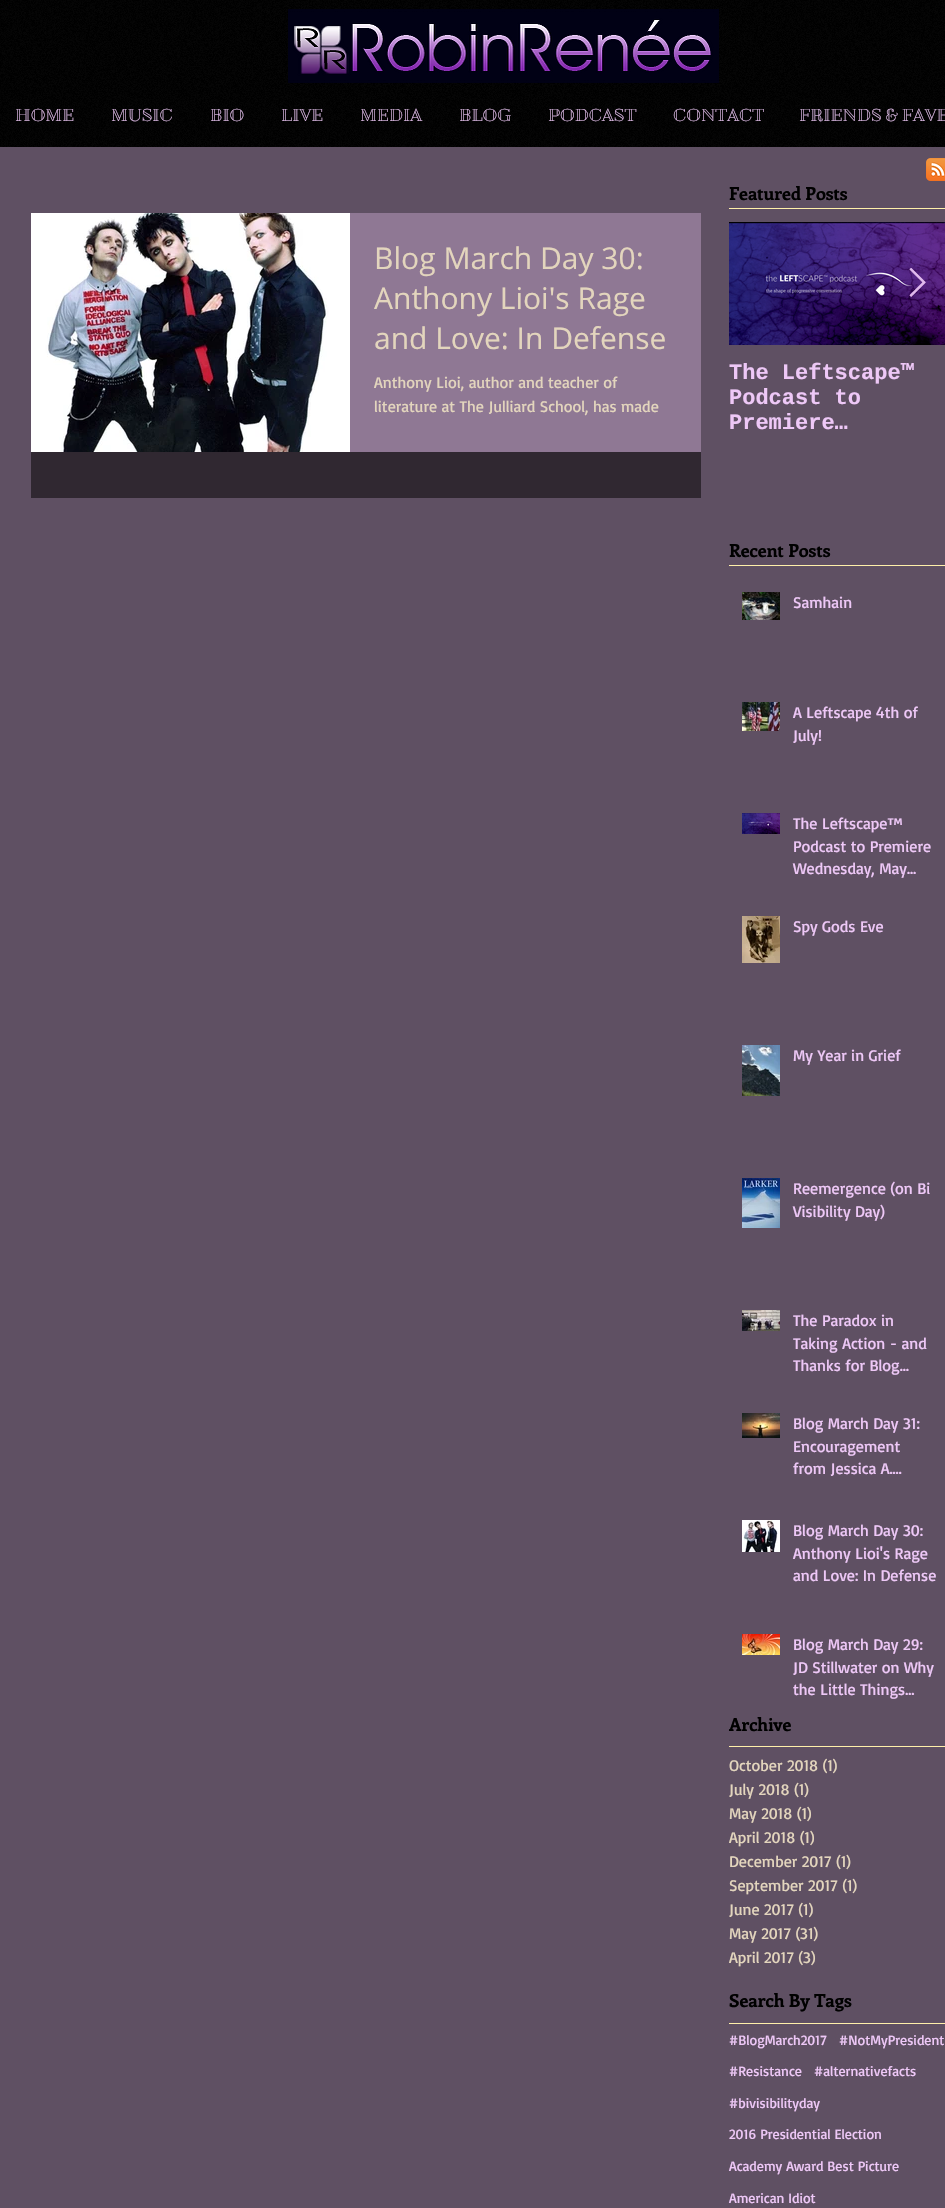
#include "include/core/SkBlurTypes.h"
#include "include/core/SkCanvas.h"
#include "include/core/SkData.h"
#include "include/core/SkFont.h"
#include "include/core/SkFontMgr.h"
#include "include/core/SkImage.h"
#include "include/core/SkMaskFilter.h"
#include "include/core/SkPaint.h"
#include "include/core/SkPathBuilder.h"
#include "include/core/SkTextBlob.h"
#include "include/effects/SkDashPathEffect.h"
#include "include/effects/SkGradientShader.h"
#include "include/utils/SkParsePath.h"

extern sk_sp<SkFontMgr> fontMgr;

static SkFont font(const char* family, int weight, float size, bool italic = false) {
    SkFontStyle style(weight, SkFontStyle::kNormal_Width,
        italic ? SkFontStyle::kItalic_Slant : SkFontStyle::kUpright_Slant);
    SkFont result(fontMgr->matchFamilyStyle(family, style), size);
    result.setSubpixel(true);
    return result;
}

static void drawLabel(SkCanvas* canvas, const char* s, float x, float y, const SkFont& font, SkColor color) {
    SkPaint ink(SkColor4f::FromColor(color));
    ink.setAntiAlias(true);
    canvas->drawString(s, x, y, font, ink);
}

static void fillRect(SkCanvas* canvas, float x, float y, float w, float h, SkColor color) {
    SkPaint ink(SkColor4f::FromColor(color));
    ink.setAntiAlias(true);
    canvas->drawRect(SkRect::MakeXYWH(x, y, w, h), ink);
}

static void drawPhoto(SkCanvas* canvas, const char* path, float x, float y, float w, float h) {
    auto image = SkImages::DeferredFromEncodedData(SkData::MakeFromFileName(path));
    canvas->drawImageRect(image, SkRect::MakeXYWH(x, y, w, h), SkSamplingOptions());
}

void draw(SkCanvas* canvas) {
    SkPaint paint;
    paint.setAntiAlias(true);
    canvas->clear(0xFF000000);
    drawPhoto(canvas, "assets/img1.png", 0, 0, 945, 147);
    drawPhoto(canvas, "assets/img2.png", 288, 9, 431, 74);
    SkFont font1 = font("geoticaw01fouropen", 700, 16);
    drawLabel(canvas, "HOME", 15, 121, font1, 0xFFEEC8F7);
    drawLabel(canvas, "MUSIC", 111, 121, font1, 0xFFEEC8F7);
    drawLabel(canvas, "BIO", 210, 121, font1, 0xFFEEC8F7);
    drawLabel(canvas, "LIVE", 281, 121, font1, 0xFFEEC8F7);
    drawLabel(canvas, "MEDIA", 360, 121, font1, 0xFFEEC8F7);
    drawLabel(canvas, "BLOG", 459, 121, font1, 0xFFEEC8F7);
    drawLabel(canvas, "PODCAST", 548, 121, font1, 0xFFEEC8F7);
    drawLabel(canvas, "CONTACT", 673, 121, font1, 0xFFEEC8F7);
    drawLabel(canvas, "FRIENDS & FAVE", 799, 121, font1, 0xFFEEC8F7);
    fillRect(canvas, 0, 147, 945, 2061, 0xFF5F5063);
    drawPhoto(canvas, "assets/img3.png", 926, 158, 19, 23);
    SkFont font2 = font("Enriqueta", 700, 18);
    drawLabel(canvas, "Featured Posts", 729, 200, font2, 0xFF000000);
    fillRect(canvas, 729, 208, 216, 1, 0xFFFFF0AA);
    fillRect(canvas, 31, 452, 670, 46, 0xFF302831);
    drawPhoto(canvas, "assets/img4.png", 31, 213, 319, 239);
    fillRect(canvas, 350, 213, 351, 239, 0xFF8F7894);
    SkFont font3 = font("Open Sans", 400, 30);
    drawLabel(canvas, "Blog March Day 30:", 374, 269, font3, 0xFFE3D5BD);
    drawLabel(canvas, "Anthony Lioi's Rage", 374, 309, font3, 0xFFE3D5BD);
    drawLabel(canvas, "and Love: In Defense", 374, 349, font3, 0xFFE3D5BD);
    SkFont font4 = font("Basic", 400, 16);
    drawLabel(canvas, "Anthony Lioi, author and teacher of", 374, 388, font4, 0xFFE3D5BD);
    drawLabel(canvas, "literature at The Julliard School, has made", 374, 412, font4, 0xFFE3D5BD);
    drawPhoto(canvas, "assets/img6.png", 729, 222, 216, 123);
    drawPhoto(canvas, "assets/img5.png", 909, 268, 17, 29);
    SkFont font5 = font("Liberation Mono", 700, 22);
    drawLabel(canvas, "The Leftscape™", 729, 379, font5, 0xFFEEC8F7);
    drawLabel(canvas, "Podcast to", 729, 404, font5, 0xFFEEC8F7);
    drawLabel(canvas, "Premiere…", 729, 429, font5, 0xFFEEC8F7);
    drawLabel(canvas, "Recent Posts", 729, 557, font2, 0xFF000000);
    fillRect(canvas, 729, 565, 216, 1, 0xFFFFF0AA);
    drawPhoto(canvas, "assets/img7.png", 742, 592, 38, 28);
    drawLabel(canvas, "Samhain", 793, 608, font4, 0xFFEEC8F7);
    drawPhoto(canvas, "assets/img8.png", 742, 702, 38, 29);
    drawLabel(canvas, "A Leftscape 4th of", 793, 718, font4, 0xFFEEC8F7);
    drawLabel(canvas, "July!", 793, 741, font4, 0xFFEEC8F7);
    drawPhoto(canvas, "assets/img9.png", 742, 813, 38, 21);
    drawLabel(canvas, "The Leftscape™", 793, 829, font4, 0xFFEEC8F7);
    drawLabel(canvas, "Podcast to Premiere", 793, 852, font4, 0xFFEEC8F7);
    drawLabel(canvas, "Wednesday, May…", 793, 874, font4, 0xFFEEC8F7);
    drawPhoto(canvas, "assets/img10.png", 742, 916, 38, 47);
    drawLabel(canvas, "Spy Gods Eve", 793, 932, font4, 0xFFEEC8F7);
    drawPhoto(canvas, "assets/img11.png", 742, 1045, 38, 51);
    drawLabel(canvas, "My Year in Grief", 793, 1061, font4, 0xFFEEC8F7);
    drawPhoto(canvas, "assets/img12.png", 742, 1178, 38, 50);
    drawLabel(canvas, "Reemergence (on Bi", 793, 1194, font4, 0xFFEEC8F7);
    drawLabel(canvas, "Visibility Day)", 793, 1217, font4, 0xFFEEC8F7);
    drawPhoto(canvas, "assets/img13.png", 742, 1310, 38, 21);
    drawLabel(canvas, "The Paradox in", 793, 1326, font4, 0xFFEEC8F7);
    drawLabel(canvas, "Taking Action - and", 793, 1349, font4, 0xFFEEC8F7);
    drawLabel(canvas, "Thanks for Blog…", 793, 1371, font4, 0xFFEEC8F7);
    drawPhoto(canvas, "assets/img14.png", 742, 1413, 38, 25);
    drawLabel(canvas, "Blog March Day 31:", 793, 1429, font4, 0xFFEEC8F7);
    drawLabel(canvas, "Encouragement", 793, 1452, font4, 0xFFEEC8F7);
    drawLabel(canvas, "from Jessica A.…", 793, 1474, font4, 0xFFEEC8F7);
    drawPhoto(canvas, "assets/img15.png", 742, 1520, 38, 32);
    drawLabel(canvas, "Blog March Day 30:", 793, 1536, font4, 0xFFEEC8F7);
    drawLabel(canvas, "Anthony Lioi's Rage", 793, 1559, font4, 0xFFEEC8F7);
    drawLabel(canvas, "and Love: In Defense", 793, 1581, font4, 0xFFEEC8F7);
    drawPhoto(canvas, "assets/img16.png", 742, 1634, 38, 21);
    drawLabel(canvas, "Blog March Day 29:", 793, 1650, font4, 0xFFEEC8F7);
    drawLabel(canvas, "JD Stillwater on Why", 793, 1673, font4, 0xFFEEC8F7);
    drawLabel(canvas, "the Little Things…", 793, 1695, font4, 0xFFEEC8F7);
    drawLabel(canvas, "Archive", 729, 1731, font2, 0xFF000000);
    fillRect(canvas, 729, 1746, 216, 1, 0xFFFFF0AA);
    drawLabel(canvas, "October 2018 (1)", 729, 1771, font4, 0xFFE3D5BD);
    drawLabel(canvas, "July 2018 (1)", 729, 1795, font4, 0xFFE3D5BD);
    drawLabel(canvas, "May 2018 (1)", 729, 1819, font4, 0xFFE3D5BD);
    drawLabel(canvas, "April 2018 (1)", 729, 1843, font4, 0xFFE3D5BD);
    drawLabel(canvas, "December 2017 (1)", 729, 1867, font4, 0xFFE3D5BD);
    drawLabel(canvas, "September 2017 (1)", 729, 1891, font4, 0xFFE3D5BD);
    drawLabel(canvas, "June 2017 (1)", 729, 1915, font4, 0xFFE3D5BD);
    drawLabel(canvas, "May 2017 (31)", 729, 1939, font4, 0xFFE3D5BD);
    drawLabel(canvas, "April 2017 (3)", 729, 1963, font4, 0xFFE3D5BD);
    drawLabel(canvas, "Search By Tags", 729, 2007, font2, 0xFF000000);
    fillRect(canvas, 729, 2023, 216, 1, 0xFFFFF0AA);
    SkFont font6 = font("Basic", 400, 14);
    drawLabel(canvas, "#BlogMarch2017", 729, 2045, font6, 0xFFEEC8F7);
    drawLabel(canvas, "#NotMyPresident", 839, 2045, font6, 0xFFEEC8F7);
    drawLabel(canvas, "#Resistance", 729, 2076, font6, 0xFFEEC8F7);
    drawLabel(canvas, "#alternativefacts", 814, 2076, font6, 0xFFEEC8F7);
    drawLabel(canvas, "#bivisibilityday", 729, 2108, font6, 0xFFEEC8F7);
    drawLabel(canvas, "2016 Presidential Election", 729, 2139, font6, 0xFFEEC8F7);
    drawLabel(canvas, "Academy Award Best Picture", 729, 2171, font6, 0xFFEEC8F7);
    drawLabel(canvas, "American Idiot", 729, 2203, font6, 0xFFEEC8F7);
}
